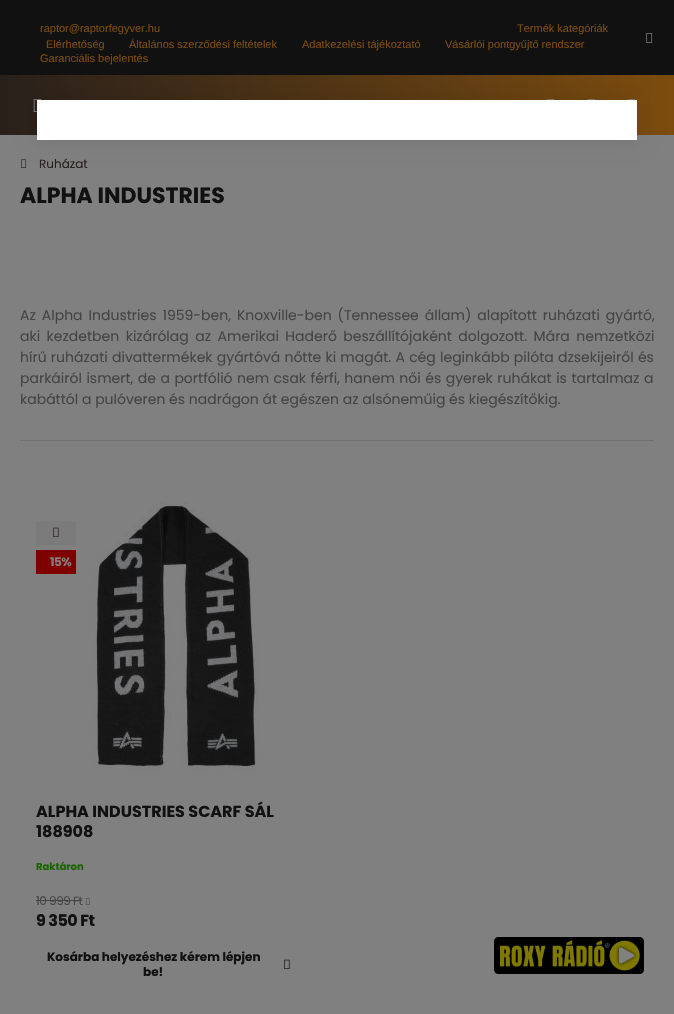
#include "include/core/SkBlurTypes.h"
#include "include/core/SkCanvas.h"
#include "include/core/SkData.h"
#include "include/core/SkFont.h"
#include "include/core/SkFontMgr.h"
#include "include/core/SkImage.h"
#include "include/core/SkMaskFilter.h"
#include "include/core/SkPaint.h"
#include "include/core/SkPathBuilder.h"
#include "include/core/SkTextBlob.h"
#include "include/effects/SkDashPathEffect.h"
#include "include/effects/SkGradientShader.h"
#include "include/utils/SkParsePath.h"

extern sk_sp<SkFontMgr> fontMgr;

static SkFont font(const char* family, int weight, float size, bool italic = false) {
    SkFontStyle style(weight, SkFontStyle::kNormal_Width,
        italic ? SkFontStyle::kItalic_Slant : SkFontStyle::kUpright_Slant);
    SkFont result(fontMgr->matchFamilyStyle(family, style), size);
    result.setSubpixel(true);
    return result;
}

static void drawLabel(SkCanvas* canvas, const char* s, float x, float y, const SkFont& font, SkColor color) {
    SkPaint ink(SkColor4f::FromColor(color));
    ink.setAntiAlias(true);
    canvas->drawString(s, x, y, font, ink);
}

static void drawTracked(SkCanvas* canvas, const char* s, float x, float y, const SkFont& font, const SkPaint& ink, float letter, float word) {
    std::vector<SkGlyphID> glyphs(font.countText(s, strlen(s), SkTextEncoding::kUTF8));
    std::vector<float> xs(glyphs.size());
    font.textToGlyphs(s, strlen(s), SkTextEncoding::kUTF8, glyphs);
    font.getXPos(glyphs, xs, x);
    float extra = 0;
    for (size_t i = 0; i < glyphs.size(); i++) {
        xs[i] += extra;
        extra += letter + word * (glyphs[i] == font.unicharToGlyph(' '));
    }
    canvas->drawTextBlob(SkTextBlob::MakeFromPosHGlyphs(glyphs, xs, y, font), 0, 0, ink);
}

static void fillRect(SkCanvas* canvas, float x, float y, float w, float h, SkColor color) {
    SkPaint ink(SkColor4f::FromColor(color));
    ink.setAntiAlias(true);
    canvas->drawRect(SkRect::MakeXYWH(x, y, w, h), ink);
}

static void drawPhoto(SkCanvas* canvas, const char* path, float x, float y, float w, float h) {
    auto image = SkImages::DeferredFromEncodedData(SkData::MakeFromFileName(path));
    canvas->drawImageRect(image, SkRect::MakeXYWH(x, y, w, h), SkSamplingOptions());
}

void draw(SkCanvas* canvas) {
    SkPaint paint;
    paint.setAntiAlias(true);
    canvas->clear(0xFF808080);
    fillRect(canvas, 0, 0, 674, 75, 0xFF111111);
    SkFont font1 = font("Liberation Sans", 400, 11);
    drawLabel(canvas, "raptor@raptorfegyver.hu", 40, 32, font1, 0xFF7C4C0F);
    drawLabel(canvas, "Termék kategóriák", 517, 32, font1, 0xFF7C4C0F);
    drawLabel(canvas, "Elérhetőség", 46, 48, font1, 0xFF7C4C0F);
    drawLabel(canvas, "Általános szerződési feltételek", 129, 48, font1, 0xFF7C4C0F);
    drawLabel(canvas, "Adatkezelési tájékoztató", 302, 48, font1, 0xFF7C4C0F);
    drawLabel(canvas, "Vásárlói pontgyűjtő rendszer", 445, 48, font1, 0xFF7C4C0F);
    drawLabel(canvas, "Garanciális bejelentés", 40, 62, font1, 0xFF7C4C0F);
    drawPhoto(canvas, "assets/img1.png", 646, 33, 7, 10);
    {
        const SkColor colors[] = {0xFF29201B, 0xFF7C4C0E};
        const float stops[] = {0, 1};
        const SkPoint ends[] = {{0, 105}, {674, 105}};
        paint.setShader(SkGradientShader::MakeLinear(ends, colors, stops, 2, SkTileMode::kClamp));
        paint.setAlpha(255);
    }
    canvas->drawRect(SkRect::MakeXYWH(0, 75, 674, 60), paint);
    drawPhoto(canvas, "assets/img2.png", 33, 99, 9, 13);
    drawPhoto(canvas, "assets/img3.png", 546, 99, 9, 1);
    drawPhoto(canvas, "assets/img4.png", 587, 99, 9, 1);
    drawPhoto(canvas, "assets/img5.png", 627, 99, 9, 1);
    drawPhoto(canvas, "assets/img6.png", 21, 159, 6, 9);
    SkFont font2 = font("Poppins", 400, 12);
    drawLabel(canvas, "Ruházat", 39, 168, font2, 0xFF29201B);
    SkFont font3 = font("Poppins", 700, 22);
    drawLabel(canvas, "ALPHA INDUSTRIES", 20, 203, font3, 0xFF111111);
    SkFont font4 = font("Poppins", 400, 14);
    paint.setShader(nullptr);
    paint.setColor(0xFF444444);
    drawTracked(canvas, "Az Alpha Industries 1959-ben, Knoxville-ben (Tennessee állam) alapított ruházati gyártó,", 20, 320, font4, paint, 0, 2.25f);
    drawTracked(canvas, "aki kezdetben kizárólag az Amerikai Haderő beszállítójaként dolgozott. Mára nemzetközi", 20, 341, font4, paint, 0, 2.75f);
    drawTracked(canvas, "hírű ruházati divattermékek gyártóvá nőtte ki magát. A cég leginkább pilóta dzsekijeiről és", 20, 362, font4, paint, 0, 0.5f);
    drawTracked(canvas, "parkáiról ismert, de a portfólió nem csak férfi, hanem női és gyerek ruhákat is tartalmaz a", 20, 383, font4, paint, 0, 0.75f);
    drawLabel(canvas, "kabáttól a pulóveren és nadrágon át egészen az alsóneműig és kiegészítőkig.", 20, 404, font4, 0xFF444444);
    fillRect(canvas, 20, 440, 634, 1, 0xFF6F6F6F);
    fillRect(canvas, 36, 521, 40, 24, 0xFF7B7B7B);
    drawPhoto(canvas, "assets/img7.png", 53, 527, 6, 10);
    fillRect(canvas, 36, 550, 40, 24, 0xFF7F0000);
    SkFont font5 = font("Poppins", 700, 12);
    paint.setColor(0xFF808080);
    drawTracked(canvas, "15%", 50, 566, font5, paint, -0.5f, 0);
    drawPhoto(canvas, "assets/img8.png", 92, 501, 167, 272);
    SkFont font6 = font("Poppins", 700, 16);
    drawLabel(canvas, "ALPHA INDUSTRIES SCARF SÁL", 36, 817, font6, 0xFF111111);
    drawLabel(canvas, "188908", 36, 837, font6, 0xFF111111);
    SkFont font7 = font("Poppins", 700, 10);
    drawLabel(canvas, "Raktáron", 36, 870, font7, 0xFF1A6400);
    paint.setColor(0xFF444444);
    drawTracked(canvas, "10 999 Ft", 36, 905, font2, paint, -0.5f, 0);
    fillRect(canvas, 36, 900, 46, 1, 0xFF444444);
    drawPhoto(canvas, "assets/img9.png", 85, 898, 5, 7);
    paint.setColor(0xFF111111);
    drawTracked(canvas, "9 350 Ft", 36, 926, font6, paint, -0.5f, 0);
    drawLabel(canvas, "Kosárba helyezéshez kérem lépjen", 47, 961, font5, 0xFF111111);
    drawLabel(canvas, "be!", 143, 976, font5, 0xFF111111);
    drawPhoto(canvas, "assets/img10.png", 284, 959, 6, 10);
    paint.setColor(0x1A000000);
    paint.setMaskFilter(SkMaskFilter::MakeBlur(kNormal_SkBlurStyle, 10));
    canvas->drawRect(SkRect::MakeXYWH(37, 100, 600, 40), paint);
    paint.setMaskFilter(nullptr);
    fillRect(canvas, 37, 100, 600, 40, 0xFFFFFFFF);
    drawPhoto(canvas, "assets/img11.png", 494, 937, 150, 37);
}
